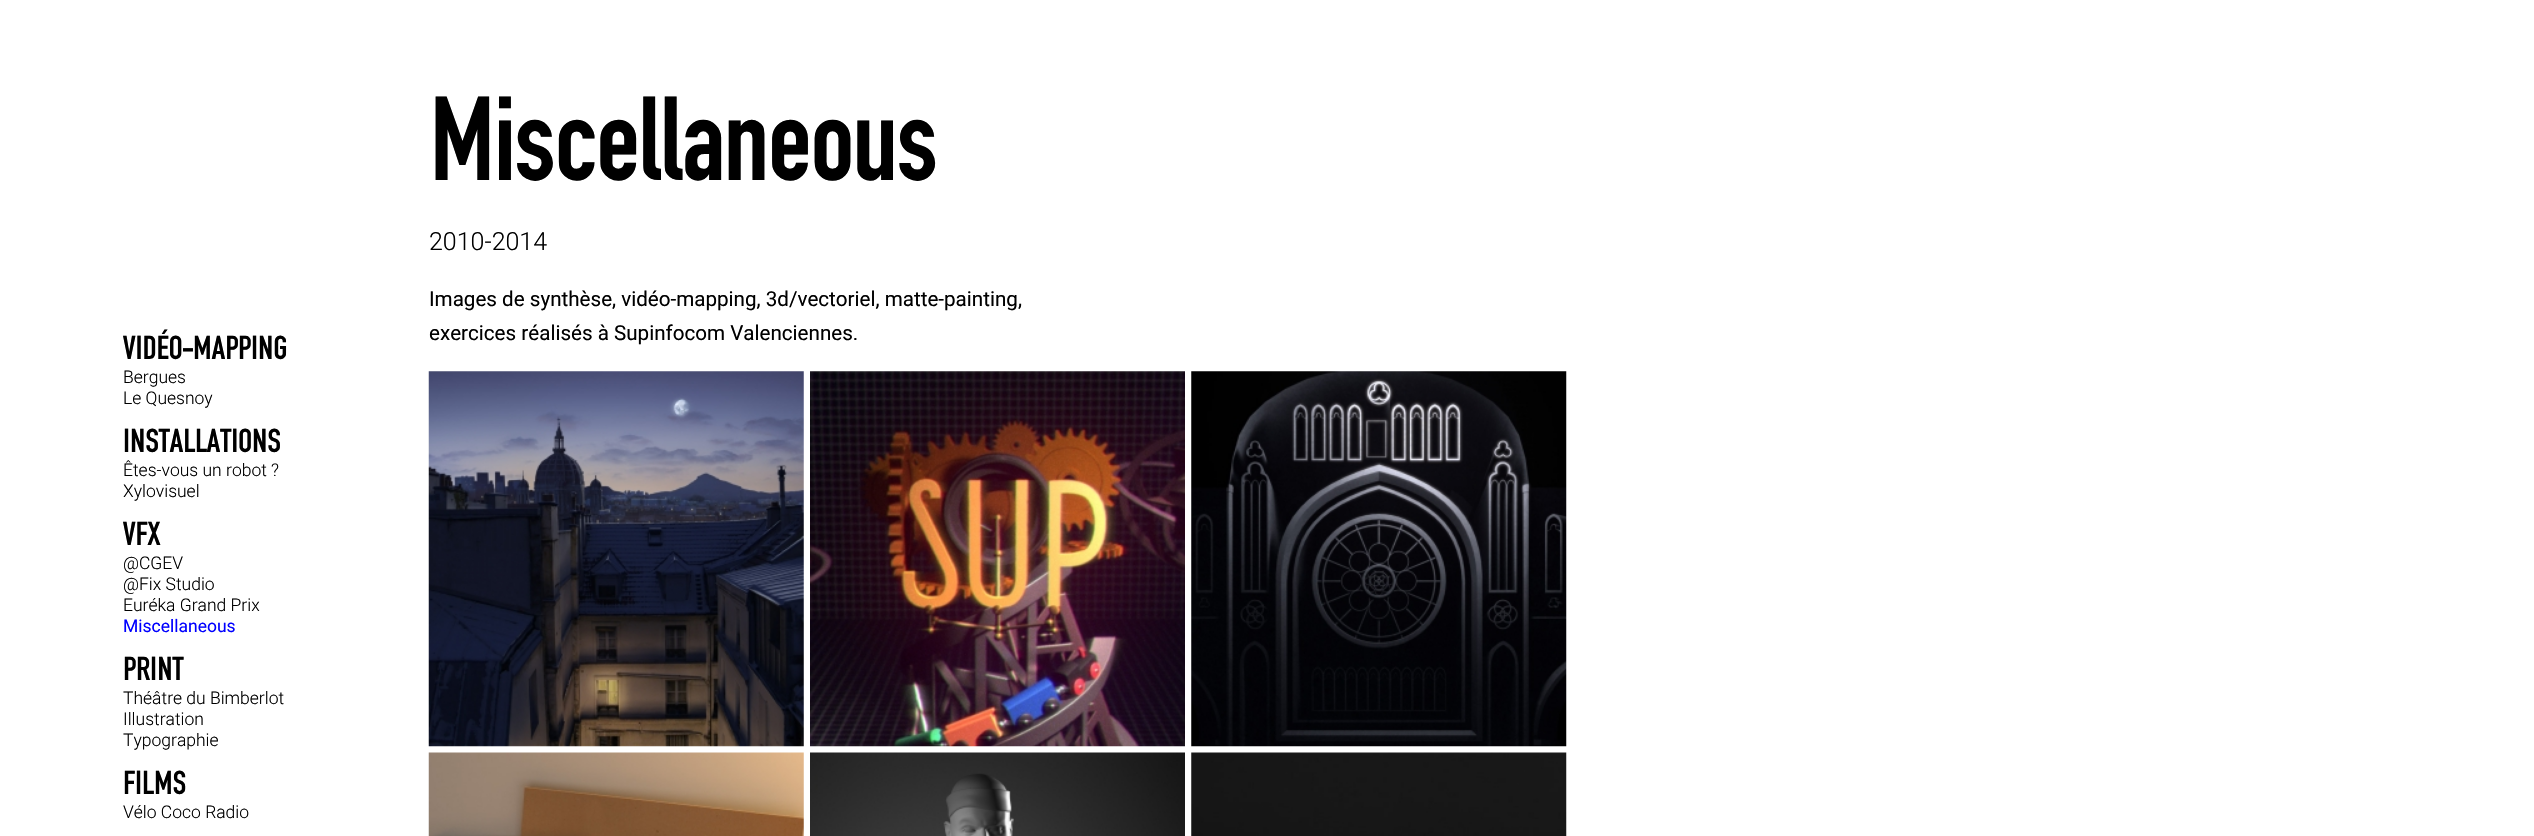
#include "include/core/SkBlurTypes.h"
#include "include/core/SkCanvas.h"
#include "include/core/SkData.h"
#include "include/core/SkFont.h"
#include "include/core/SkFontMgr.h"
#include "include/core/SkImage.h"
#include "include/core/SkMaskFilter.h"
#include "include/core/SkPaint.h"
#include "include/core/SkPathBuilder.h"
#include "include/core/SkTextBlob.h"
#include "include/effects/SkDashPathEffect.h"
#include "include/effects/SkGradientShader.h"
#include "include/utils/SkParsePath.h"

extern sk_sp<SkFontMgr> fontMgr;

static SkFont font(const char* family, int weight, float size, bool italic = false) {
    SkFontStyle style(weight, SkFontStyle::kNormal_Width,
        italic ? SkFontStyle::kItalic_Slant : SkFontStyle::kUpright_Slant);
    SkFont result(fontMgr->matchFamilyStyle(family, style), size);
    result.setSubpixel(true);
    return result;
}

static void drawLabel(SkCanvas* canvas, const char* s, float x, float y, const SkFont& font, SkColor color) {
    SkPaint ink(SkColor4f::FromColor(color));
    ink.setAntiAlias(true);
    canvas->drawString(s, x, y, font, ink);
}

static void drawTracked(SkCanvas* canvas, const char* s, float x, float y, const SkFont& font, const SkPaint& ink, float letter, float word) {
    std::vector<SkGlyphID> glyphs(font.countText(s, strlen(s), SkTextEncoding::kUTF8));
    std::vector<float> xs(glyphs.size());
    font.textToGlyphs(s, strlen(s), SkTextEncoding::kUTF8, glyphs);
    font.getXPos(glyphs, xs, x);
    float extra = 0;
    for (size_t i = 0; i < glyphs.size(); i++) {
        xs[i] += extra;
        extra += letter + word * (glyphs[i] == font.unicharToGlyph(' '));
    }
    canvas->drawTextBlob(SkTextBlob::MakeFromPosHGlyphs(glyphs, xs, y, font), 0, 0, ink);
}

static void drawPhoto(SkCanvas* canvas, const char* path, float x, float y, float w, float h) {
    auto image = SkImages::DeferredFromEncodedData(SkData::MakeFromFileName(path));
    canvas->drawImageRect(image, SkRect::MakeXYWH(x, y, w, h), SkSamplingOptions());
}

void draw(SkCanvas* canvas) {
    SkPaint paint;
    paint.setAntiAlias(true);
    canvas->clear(0xFFFFFFFF);
    SkFont font1 = font("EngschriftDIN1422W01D", 400, 125);
    paint.setColor(0xFF000000);
    drawTracked(canvas, "Miscellaneous", 429, 180, font1, paint, -2, 0);
    SkFont font2 = font("Roboto", 300, 25);
    drawLabel(canvas, "2010-2014", 429, 250, font2, 0xFF000000);
    SkFont font3 = font("Roboto", 400, 20.6f);
    drawLabel(canvas, "Images de synthèse, vidéo-mapping, 3d/vectoriel, matte-painting,", 429, 306, font3, 0xFF000000);
    drawLabel(canvas, "exercices réalisés à Supinfocom Valenciennes.", 429, 340, font3, 0xFF000000);
    drawPhoto(canvas, "assets/img1.png", 428, 371, 376, 376);
    drawPhoto(canvas, "assets/img2.png", 810, 371, 375, 376);
    drawPhoto(canvas, "assets/img3.png", 1191, 371, 376, 376);
    drawPhoto(canvas, "assets/img4.png", 428, 752, 376, 84);
    drawPhoto(canvas, "assets/img5.png", 810, 752, 375, 84);
    drawPhoto(canvas, "assets/img6.png", 1191, 752, 376, 84);
    SkFont font4 = font("EngschriftDIN1422W01D", 400, 35);
    drawLabel(canvas, "VIDÉO-MAPPING", 123, 359, font4, 0xFF000000);
    SkFont font5 = font("Roboto", 300, 17.5f);
    drawLabel(canvas, "Bergues", 123, 383, font5, 0xFF000000);
    drawLabel(canvas, "Le Quesnoy", 123, 404, font5, 0xFF000000);
    drawLabel(canvas, "INSTALLATIONS", 123, 452, font4, 0xFF000000);
    drawLabel(canvas, "Êtes-vous un robot ?", 123, 476, font5, 0xFF000000);
    drawLabel(canvas, "Xylovisuel", 123, 497, font5, 0xFF000000);
    drawLabel(canvas, "VFX", 123, 545, font4, 0xFF000000);
    drawLabel(canvas, "@CGEV", 123, 569, font5, 0xFF000000);
    drawLabel(canvas, "@Fix Studio", 123, 590, font5, 0xFF000000);
    drawLabel(canvas, "Euréka Grand Prix", 123, 611, font5, 0xFF000000);
    SkFont font6 = font("Roboto", 400, 17.5f);
    drawLabel(canvas, "Miscellaneous", 123, 632, font6, 0xFF0000FF);
    drawLabel(canvas, "PRINT", 123, 680, font4, 0xFF000000);
    drawLabel(canvas, "Théâtre du Bimberlot", 123, 704, font5, 0xFF000000);
    drawLabel(canvas, "Illustration", 123, 725, font5, 0xFF000000);
    drawLabel(canvas, "Typographie", 123, 746, font5, 0xFF000000);
    drawLabel(canvas, "FILMS", 123, 794, font4, 0xFF000000);
    drawLabel(canvas, "Vélo Coco Radio", 123, 818, font5, 0xFF000000);
}
